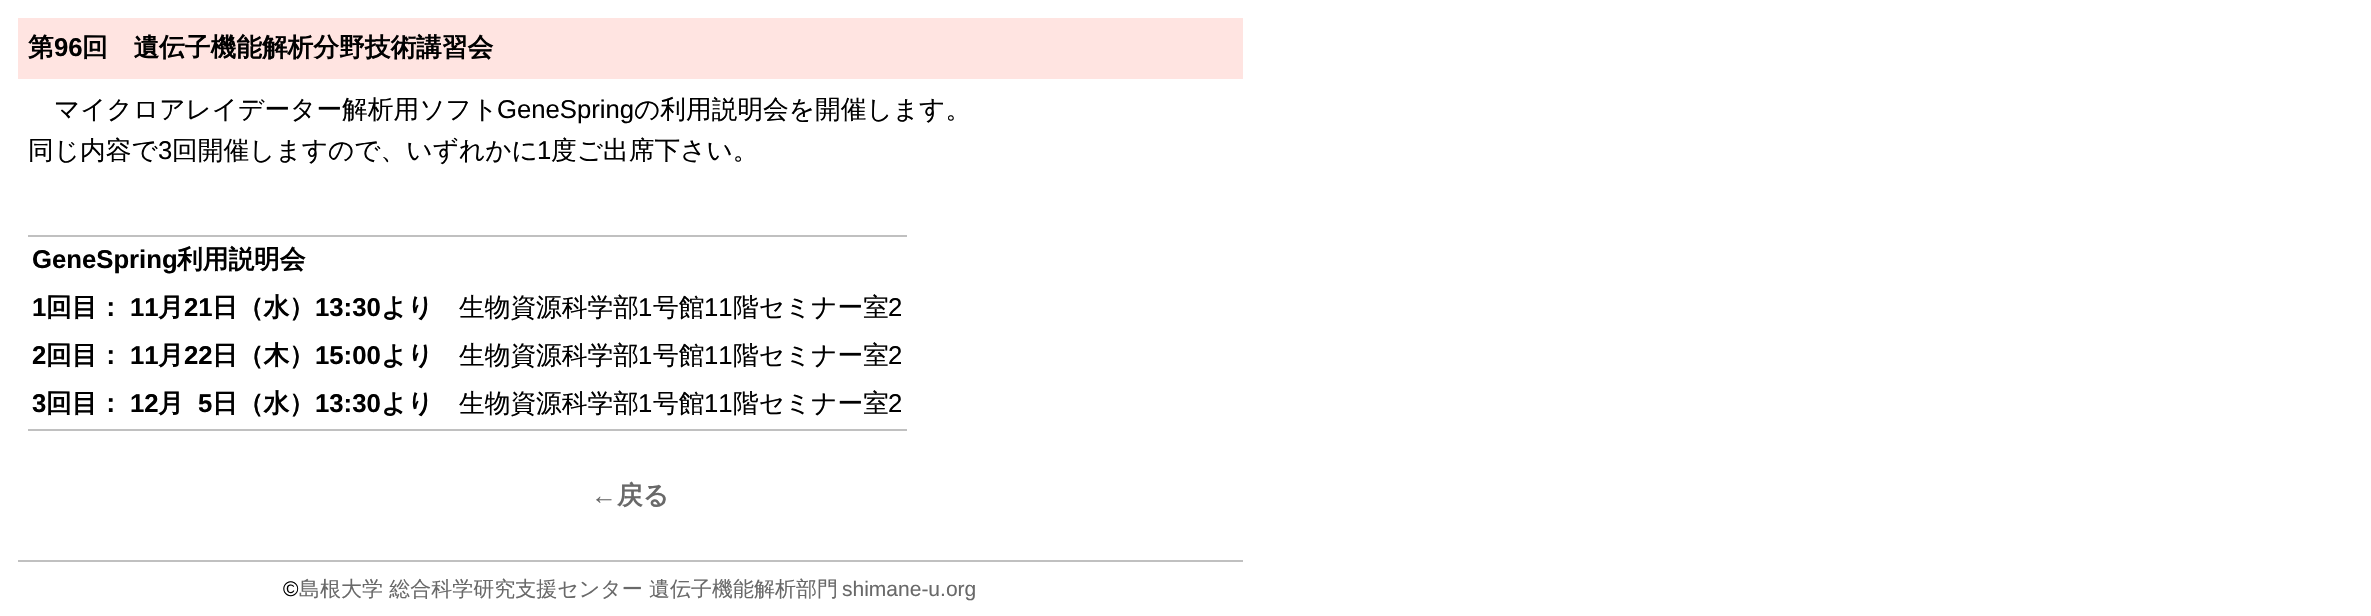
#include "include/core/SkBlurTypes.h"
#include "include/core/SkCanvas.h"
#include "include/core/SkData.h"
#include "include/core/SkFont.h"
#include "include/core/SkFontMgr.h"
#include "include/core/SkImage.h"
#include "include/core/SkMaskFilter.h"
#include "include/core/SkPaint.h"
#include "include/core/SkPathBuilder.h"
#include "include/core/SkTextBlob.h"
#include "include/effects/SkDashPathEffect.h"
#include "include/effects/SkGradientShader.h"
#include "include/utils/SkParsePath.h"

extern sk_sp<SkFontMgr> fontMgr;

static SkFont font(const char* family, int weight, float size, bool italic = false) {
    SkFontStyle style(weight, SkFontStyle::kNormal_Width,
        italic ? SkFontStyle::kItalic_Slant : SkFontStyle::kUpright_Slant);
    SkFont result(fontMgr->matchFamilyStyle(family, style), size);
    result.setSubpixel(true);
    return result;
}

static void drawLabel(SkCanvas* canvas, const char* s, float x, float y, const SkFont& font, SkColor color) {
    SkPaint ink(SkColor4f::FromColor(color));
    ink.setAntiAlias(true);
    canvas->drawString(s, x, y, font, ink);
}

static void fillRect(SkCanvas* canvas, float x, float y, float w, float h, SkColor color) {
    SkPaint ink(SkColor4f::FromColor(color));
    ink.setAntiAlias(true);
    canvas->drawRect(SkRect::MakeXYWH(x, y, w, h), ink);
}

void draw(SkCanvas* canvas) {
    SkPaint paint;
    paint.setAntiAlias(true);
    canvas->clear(0xFFFFFFFF);
    fillRect(canvas, 18, 18, 1225, 61, 0xFFFFE4E1);
    SkFont font1 = font("WenQuanYi Zen Hei", 700, 25.7f);
    drawLabel(canvas, "第", 28, 56, font1, 0xFF000000);
    SkFont font2 = font("Liberation Sans", 700, 25.7f);
    drawLabel(canvas, "96", 54, 56, font2, 0xFF000000);
    drawLabel(canvas, "回　遺伝子機能解析分野技術講習会", 82, 56, font1, 0xFF000000);
    SkFont font3 = font("WenQuanYi Zen Hei", 500, 25.7f);
    drawLabel(canvas, "マイクロアレイデーター解析用ソフト", 54, 118, font3, 0xFF000000);
    SkFont font4 = font("Liberation Sans", 400, 25.7f);
    drawLabel(canvas, "GeneSpring", 497, 118, font4, 0xFF000000);
    drawLabel(canvas, "の利用説明会を開催します。", 634, 118, font3, 0xFF000000);
    drawLabel(canvas, "同じ内容で", 28, 159, font3, 0xFF000000);
    drawLabel(canvas, "3", 158, 159, font4, 0xFF000000);
    drawLabel(canvas, "回開催しますので、いずれかに", 172, 159, font3, 0xFF000000);
    drawLabel(canvas, "1", 537, 159, font4, 0xFF000000);
    drawLabel(canvas, "度ご出席下さい。", 551, 159, font3, 0xFF000000);
    fillRect(canvas, 28, 235, 879, 2, 0xFFC0C0C0);
    fillRect(canvas, 28, 429, 879, 2, 0xFFC0C0C0);
    drawLabel(canvas, "GeneSpring", 32, 268, font2, 0xFF000000);
    drawLabel(canvas, "利用説明会", 177, 268, font1, 0xFF000000);
    drawLabel(canvas, "1", 32, 316, font2, 0xFF000000);
    drawLabel(canvas, "回目：", 46, 316, font1, 0xFF000000);
    drawLabel(canvas, "11", 130, 316, font2, 0xFF000000);
    drawLabel(canvas, "月", 158, 316, font1, 0xFF000000);
    drawLabel(canvas, "21", 184, 316, font2, 0xFF000000);
    drawLabel(canvas, "日（水）", 212, 316, font1, 0xFF000000);
    drawLabel(canvas, "13:30", 315, 316, font2, 0xFF000000);
    drawLabel(canvas, "より", 381, 316, font1, 0xFF000000);
    drawLabel(canvas, "生物資源科学部", 459, 316, font3, 0xFF000000);
    drawLabel(canvas, "1", 638, 316, font4, 0xFF000000);
    drawLabel(canvas, "号館", 653, 316, font3, 0xFF000000);
    drawLabel(canvas, "11", 704, 316, font4, 0xFF000000);
    drawLabel(canvas, "階セミナー室", 733, 316, font3, 0xFF000000);
    drawLabel(canvas, "2", 888, 316, font4, 0xFF000000);
    drawLabel(canvas, "2", 32, 364, font2, 0xFF000000);
    drawLabel(canvas, "回目：", 46, 364, font1, 0xFF000000);
    drawLabel(canvas, "11", 130, 364, font2, 0xFF000000);
    drawLabel(canvas, "月", 158, 364, font1, 0xFF000000);
    drawLabel(canvas, "22", 184, 364, font2, 0xFF000000);
    drawLabel(canvas, "日（木）", 212, 364, font1, 0xFF000000);
    drawLabel(canvas, "15:00", 315, 364, font2, 0xFF000000);
    drawLabel(canvas, "より", 381, 364, font1, 0xFF000000);
    drawLabel(canvas, "生物資源科学部", 459, 364, font3, 0xFF000000);
    drawLabel(canvas, "1", 638, 364, font4, 0xFF000000);
    drawLabel(canvas, "号館", 653, 364, font3, 0xFF000000);
    drawLabel(canvas, "11", 704, 364, font4, 0xFF000000);
    drawLabel(canvas, "階セミナー室", 733, 364, font3, 0xFF000000);
    drawLabel(canvas, "2", 888, 364, font4, 0xFF000000);
    drawLabel(canvas, "3", 32, 412, font2, 0xFF000000);
    drawLabel(canvas, "回目：", 46, 412, font1, 0xFF000000);
    drawLabel(canvas, "12", 130, 412, font2, 0xFF000000);
    drawLabel(canvas, "月", 158, 412, font1, 0xFF000000);
    drawLabel(canvas, "5", 198, 412, font2, 0xFF000000);
    drawLabel(canvas, "日（水）", 212, 412, font1, 0xFF000000);
    drawLabel(canvas, "13:30", 315, 412, font2, 0xFF000000);
    drawLabel(canvas, "より", 381, 412, font1, 0xFF000000);
    drawLabel(canvas, "生物資源科学部", 459, 412, font3, 0xFF000000);
    drawLabel(canvas, "1", 638, 412, font4, 0xFF000000);
    drawLabel(canvas, "号館", 653, 412, font3, 0xFF000000);
    drawLabel(canvas, "11", 704, 412, font4, 0xFF000000);
    drawLabel(canvas, "階セミナー室", 733, 412, font3, 0xFF000000);
    drawLabel(canvas, "2", 888, 412, font4, 0xFF000000);
    drawLabel(canvas, "←", 591, 504, font2, 0xFF696969);
    drawLabel(canvas, "戻る", 617, 504, font1, 0xFF696969);
    fillRect(canvas, 18, 560, 1225, 2, 0xFFC0C0C0);
    SkFont font5 = font("Liberation Sans", 400, 21);
    drawLabel(canvas, "©", 283, 596, font5, 0xFF000000);
    SkFont font6 = font("WenQuanYi Zen Hei", 500, 21);
    drawLabel(canvas, "島根大学 総合科学研究支援センター 遺伝子機能解析部門", 299, 596, font6, 0xFF696969);
    drawLabel(canvas, "shimane-u.org", 842, 596, font5, 0xFF696969);
}
